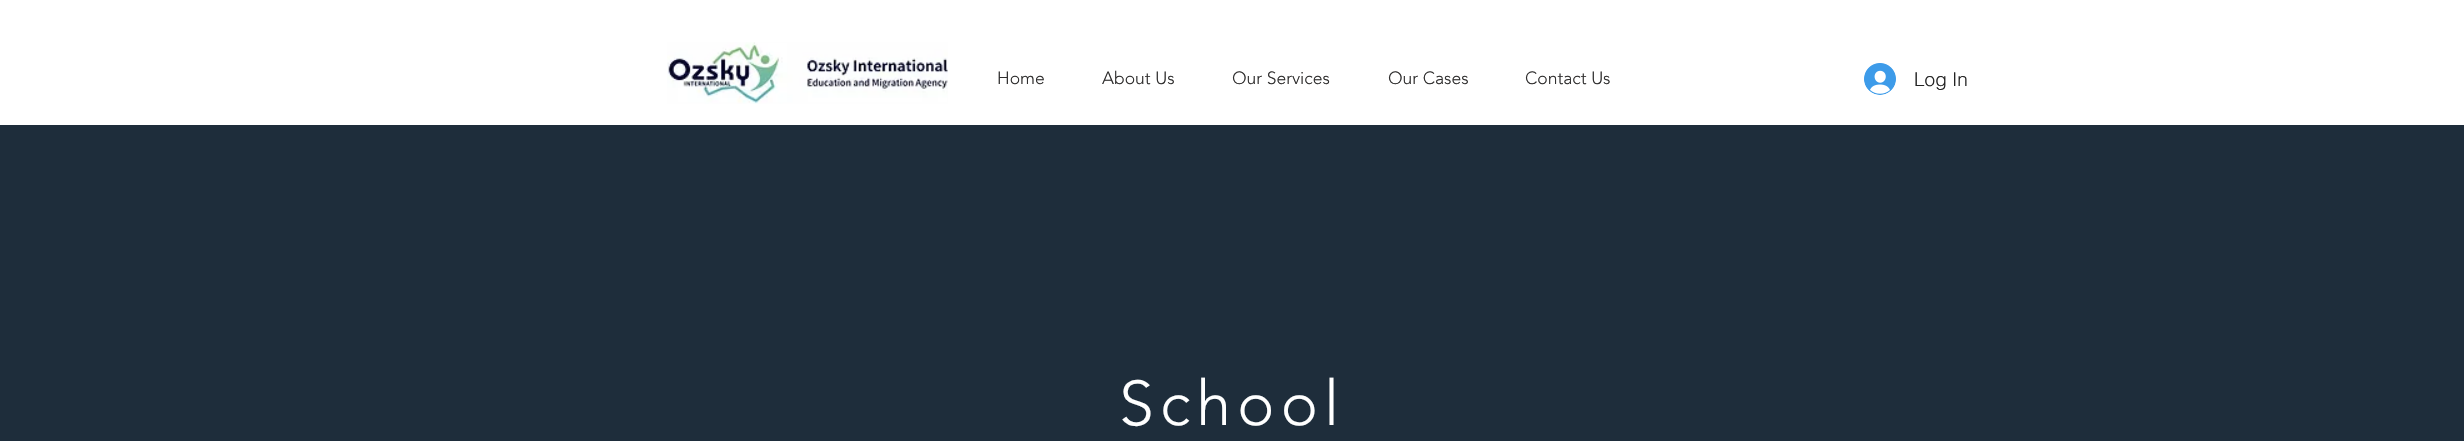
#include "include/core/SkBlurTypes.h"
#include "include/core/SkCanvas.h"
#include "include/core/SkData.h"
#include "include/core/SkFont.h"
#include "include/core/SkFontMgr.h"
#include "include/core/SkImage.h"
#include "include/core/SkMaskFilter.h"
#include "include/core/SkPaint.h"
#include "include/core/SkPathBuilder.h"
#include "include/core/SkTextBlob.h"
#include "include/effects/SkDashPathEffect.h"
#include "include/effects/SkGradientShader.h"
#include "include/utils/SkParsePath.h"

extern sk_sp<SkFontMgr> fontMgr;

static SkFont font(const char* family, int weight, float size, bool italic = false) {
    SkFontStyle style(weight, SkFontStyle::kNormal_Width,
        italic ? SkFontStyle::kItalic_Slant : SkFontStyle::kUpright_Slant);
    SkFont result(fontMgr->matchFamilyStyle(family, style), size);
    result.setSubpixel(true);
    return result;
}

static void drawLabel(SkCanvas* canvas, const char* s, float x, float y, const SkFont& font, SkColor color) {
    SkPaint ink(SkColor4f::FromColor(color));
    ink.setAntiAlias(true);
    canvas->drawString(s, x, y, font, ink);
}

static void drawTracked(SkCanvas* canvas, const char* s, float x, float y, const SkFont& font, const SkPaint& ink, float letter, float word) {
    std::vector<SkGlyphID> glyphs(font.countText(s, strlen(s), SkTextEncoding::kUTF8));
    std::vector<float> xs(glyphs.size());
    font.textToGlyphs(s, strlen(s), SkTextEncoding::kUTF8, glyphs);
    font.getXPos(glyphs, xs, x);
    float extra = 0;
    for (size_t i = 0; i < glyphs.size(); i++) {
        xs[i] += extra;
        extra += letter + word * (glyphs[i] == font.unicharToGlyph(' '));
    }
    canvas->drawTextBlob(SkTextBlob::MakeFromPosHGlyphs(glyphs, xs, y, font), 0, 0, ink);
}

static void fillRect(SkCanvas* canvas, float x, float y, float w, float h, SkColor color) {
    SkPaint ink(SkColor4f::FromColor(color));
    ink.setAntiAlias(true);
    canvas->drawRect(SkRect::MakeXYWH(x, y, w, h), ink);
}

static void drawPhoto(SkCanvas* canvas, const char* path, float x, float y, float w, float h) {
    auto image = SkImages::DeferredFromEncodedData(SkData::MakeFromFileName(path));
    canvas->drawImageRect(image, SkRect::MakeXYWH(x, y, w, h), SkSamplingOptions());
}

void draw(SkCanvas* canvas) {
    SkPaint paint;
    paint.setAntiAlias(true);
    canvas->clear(0xFFFFFFFF);
    drawPhoto(canvas, "assets/img1.png", 667, 42, 281, 62);
    SkFont font1 = font("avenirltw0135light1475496", 300, 17.5f);
    drawLabel(canvas, "Home", 997, 84, font1, 0xFF2F2E2E);
    drawLabel(canvas, "About Us", 1102, 84, font1, 0xFF2F2E2E);
    drawLabel(canvas, "Our Services", 1232, 84, font1, 0xFF2F2E2E);
    drawLabel(canvas, "Our Cases", 1388, 84, font1, 0xFF2F2E2E);
    drawLabel(canvas, "Contact Us", 1525, 84, font1, 0xFF2F2E2E);
    drawPhoto(canvas, "assets/img2.png", 1864, 63, 32, 32);
    SkFont font2 = font("helvetica", 300, 19);
    drawLabel(canvas, "Log In", 1914, 86, font2, 0xFF232323);
    fillRect(canvas, 0, 125, 2464, 316, 0xFF1E2D3B);
    SkFont font3 = font("avenirltw0135light1475496", 300, 62.5f);
    paint.setColor(0xFFFFFFFF);
    drawTracked(canvas, "School", 1119, 425, font3, paint, 6.25f, 0);
}
